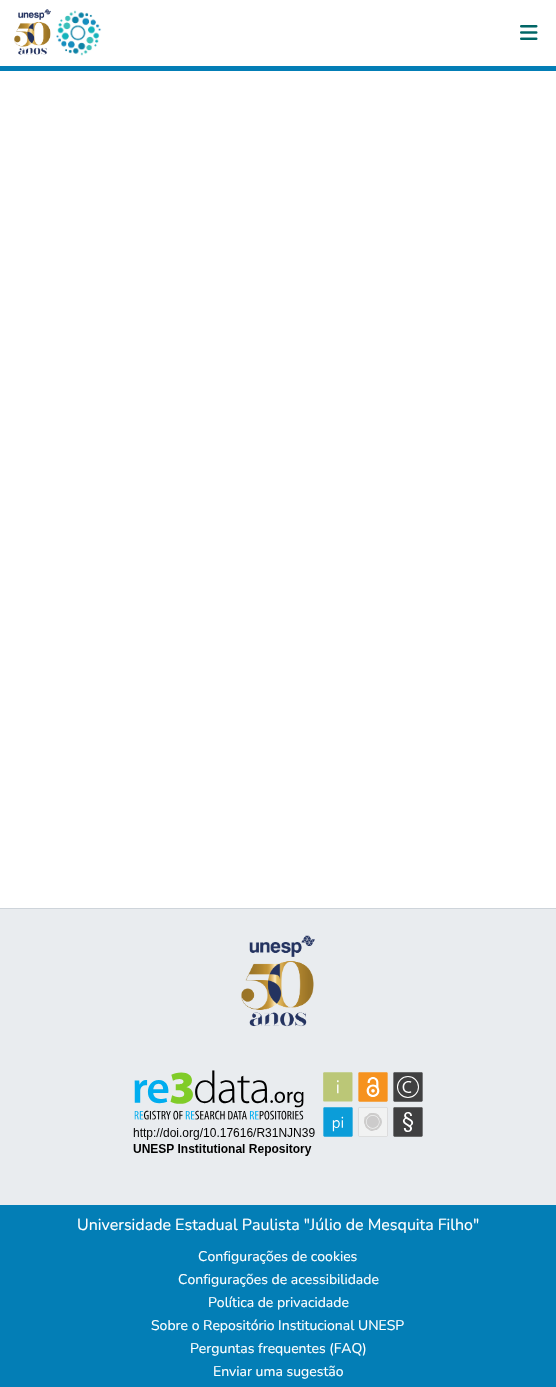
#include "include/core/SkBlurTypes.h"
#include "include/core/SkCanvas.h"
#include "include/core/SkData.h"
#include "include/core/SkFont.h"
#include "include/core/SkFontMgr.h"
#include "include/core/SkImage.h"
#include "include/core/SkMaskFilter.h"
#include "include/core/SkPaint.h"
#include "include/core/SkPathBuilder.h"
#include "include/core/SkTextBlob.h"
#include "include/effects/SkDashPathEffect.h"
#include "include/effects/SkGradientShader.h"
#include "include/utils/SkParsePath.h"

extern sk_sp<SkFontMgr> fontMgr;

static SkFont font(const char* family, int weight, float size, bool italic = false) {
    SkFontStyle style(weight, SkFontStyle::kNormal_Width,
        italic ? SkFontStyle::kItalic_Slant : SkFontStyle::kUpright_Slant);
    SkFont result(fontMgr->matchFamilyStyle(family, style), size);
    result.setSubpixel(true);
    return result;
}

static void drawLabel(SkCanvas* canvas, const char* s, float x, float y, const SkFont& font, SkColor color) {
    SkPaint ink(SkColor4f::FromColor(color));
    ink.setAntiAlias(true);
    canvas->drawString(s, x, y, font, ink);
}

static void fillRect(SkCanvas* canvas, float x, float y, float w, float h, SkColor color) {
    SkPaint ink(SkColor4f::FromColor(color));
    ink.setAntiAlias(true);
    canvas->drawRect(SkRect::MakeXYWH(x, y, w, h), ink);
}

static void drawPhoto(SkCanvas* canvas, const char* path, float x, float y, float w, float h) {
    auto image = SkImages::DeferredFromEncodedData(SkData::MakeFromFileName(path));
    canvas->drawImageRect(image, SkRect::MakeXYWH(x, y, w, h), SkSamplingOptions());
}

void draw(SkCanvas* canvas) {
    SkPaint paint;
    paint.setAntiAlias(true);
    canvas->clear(0xFFFFFFFF);
    fillRect(canvas, 0, 66, 556, 5, 0xFF037EB6);
    drawPhoto(canvas, "assets/img1.png", 14, 9, 37, 46);
    drawPhoto(canvas, "assets/img2.png", 56, 10, 46, 46);
    drawPhoto(canvas, "assets/img3.png", 520, 25, 18, 15);
    fillRect(canvas, 0, 1205, 556, 182, 0xFF037EB6);
    fillRect(canvas, 0, 908, 556, 1, 0xFFCED4DA);
    fillRect(canvas, 0, 909, 556, 296, 0xFFE9ECEF);
    drawPhoto(canvas, "assets/img4.png", 241, 935, 74, 92);
    drawPhoto(canvas, "assets/img5.png", 133, 1070, 290, 86);
    SkFont font1 = font("Nunito", 400, 16);
    drawLabel(canvas, "Universidade Estadual Paulista \"Júlio de Mesquita Filho\"", 77, 1230, font1, 0xFFFFFFFF);
    SkFont font2 = font("Nunito", 400, 14);
    drawLabel(canvas, "Configurações de cookies", 198, 1261, font2, 0xFFFFFFFF);
    drawLabel(canvas, "Configurações de acessibilidade", 178, 1284, font2, 0xFFFFFFFF);
    drawLabel(canvas, "Política de privacidade", 208, 1307, font2, 0xFFFFFFFF);
    drawLabel(canvas, "Sobre o Repositório Institucional UNESP", 151, 1330, font2, 0xFFFFFFFF);
    drawLabel(canvas, "Perguntas frequentes (FAQ)", 190, 1353, font2, 0xFFFFFFFF);
    drawLabel(canvas, "Enviar uma sugestão", 213, 1376, font2, 0xFFFFFFFF);
}
